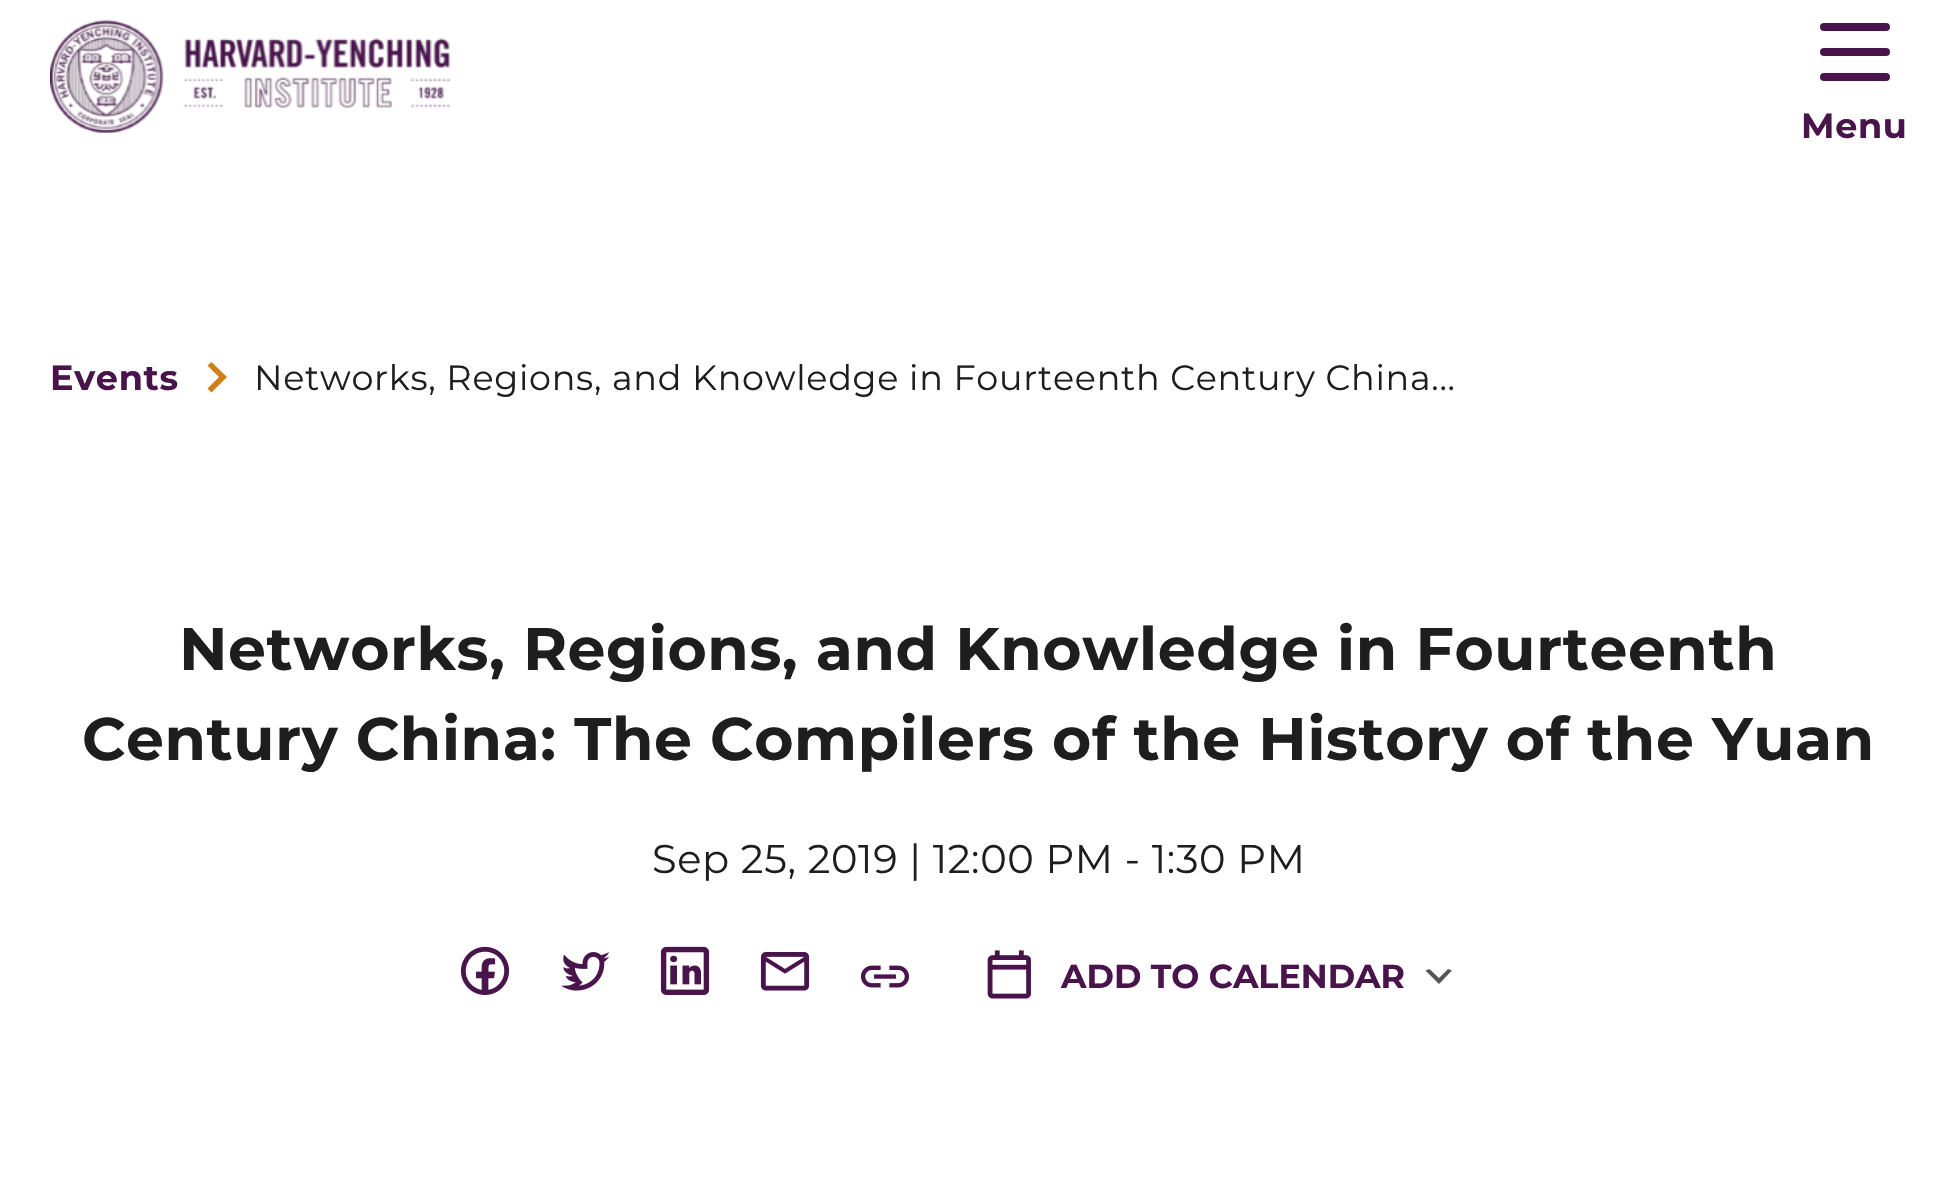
#include "include/core/SkBlurTypes.h"
#include "include/core/SkCanvas.h"
#include "include/core/SkData.h"
#include "include/core/SkFont.h"
#include "include/core/SkFontMgr.h"
#include "include/core/SkImage.h"
#include "include/core/SkMaskFilter.h"
#include "include/core/SkPaint.h"
#include "include/core/SkPathBuilder.h"
#include "include/core/SkTextBlob.h"
#include "include/effects/SkDashPathEffect.h"
#include "include/effects/SkGradientShader.h"
#include "include/utils/SkParsePath.h"

extern sk_sp<SkFontMgr> fontMgr;

static SkFont font(const char* family, int weight, float size, bool italic = false) {
    SkFontStyle style(weight, SkFontStyle::kNormal_Width,
        italic ? SkFontStyle::kItalic_Slant : SkFontStyle::kUpright_Slant);
    SkFont result(fontMgr->matchFamilyStyle(family, style), size);
    result.setSubpixel(true);
    return result;
}

static void drawLabel(SkCanvas* canvas, const char* s, float x, float y, const SkFont& font, SkColor color) {
    SkPaint ink(SkColor4f::FromColor(color));
    ink.setAntiAlias(true);
    canvas->drawString(s, x, y, font, ink);
}

static void drawTracked(SkCanvas* canvas, const char* s, float x, float y, const SkFont& font, const SkPaint& ink, float letter, float word) {
    std::vector<SkGlyphID> glyphs(font.countText(s, strlen(s), SkTextEncoding::kUTF8));
    std::vector<float> xs(glyphs.size());
    font.textToGlyphs(s, strlen(s), SkTextEncoding::kUTF8, glyphs);
    font.getXPos(glyphs, xs, x);
    float extra = 0;
    for (size_t i = 0; i < glyphs.size(); i++) {
        xs[i] += extra;
        extra += letter + word * (glyphs[i] == font.unicharToGlyph(' '));
    }
    canvas->drawTextBlob(SkTextBlob::MakeFromPosHGlyphs(glyphs, xs, y, font), 0, 0, ink);
}

static void fillRRect(SkCanvas* canvas, float x, float y, float w, float h, float radius, SkColor color) {
    SkPaint ink(SkColor4f::FromColor(color));
    ink.setAntiAlias(true);
    canvas->drawRoundRect(SkRect::MakeXYWH(x, y, w, h), radius, radius, ink);
}

static void drawPhoto(SkCanvas* canvas, const char* path, float x, float y, float w, float h) {
    auto image = SkImages::DeferredFromEncodedData(SkData::MakeFromFileName(path));
    canvas->drawImageRect(image, SkRect::MakeXYWH(x, y, w, h), SkSamplingOptions());
}

static SkPath parsePath(const char* data, bool evenOdd = false) {
    SkPath result = *SkParsePath::FromSVGString(data);
    if (evenOdd) result.setFillType(SkPathFillType::kEvenOdd);
    return result;
}

void draw(SkCanvas* canvas) {
    SkPaint paint;
    paint.setAntiAlias(true);
    canvas->clear(0xFFFFFFFF);
    drawPhoto(canvas, "assets/img1.png", 50, 19, 400, 114);
    fillRRect(canvas, 1820, 48, 70, 8, 4, 0xFF49134C);
    fillRRect(canvas, 1820, 23, 70, 8, 4, 0xFF49134C);
    fillRRect(canvas, 1820, 73, 70, 8, 4, 0xFF49134C);
    SkFont font1 = font("Montserrat", 700, 35);
    paint.setColor(0xFF49134C);
    drawTracked(canvas, "Menu", 1801, 138, font1, paint, 0.72f, 0);
    drawTracked(canvas, "Events", 50, 390, font1, paint, 0.72f, 0);
    paint.setColor(0xFFD07F18);
    canvas->drawPath(parsePath("M211.5 362L207.5 365.5L219 377L207.5 388.5L211.5 392.5L227 377Z"), paint);
    SkFont font2 = font("Montserrat", 400, 35);
    paint.setColor(0xFF1E1E1E);
    drawTracked(canvas, "Networks, Regions, and Knowledge in Fourteenth Century China...", 254, 390, font2, paint, 0.72f, 0);
    SkFont font3 = font("Montserrat", 700, 60);
    drawTracked(canvas, "Networks, Regions, and Knowledge in Fourteenth", 179, 670, font3, paint, 0.62f, 0);
    drawTracked(canvas, "Century China: The Compilers of the History of the Yuan", 82, 760, font3, paint, 0.62f, 0);
    SkFont font4 = font("Montserrat", 400, 40);
    drawTracked(canvas, "Sep 25, 2019 | 12:00 PM - 1:30 PM", 652, 873, font4, paint, 0.62f, 0);
    drawPhoto(canvas, "assets/img2.png", 460, 946, 50, 49);
    drawPhoto(canvas, "assets/img3.png", 561, 952, 48, 39);
    drawPhoto(canvas, "assets/img4.png", 660, 946, 50, 49);
    drawPhoto(canvas, "assets/img5.png", 760, 952, 50, 39);
    drawPhoto(canvas, "assets/img6.png", 860, 965, 50, 23);
    paint.setColor(0xFF555555);
    canvas->drawPath(parsePath("M1429.5 969L1439 978L1448 969L1452 970.5L1439 984L1425.5 970.5Z"), paint);
    drawPhoto(canvas, "assets/img7.png", 987, 950, 44, 49);
    SkFont font5 = font("Montserrat", 700, 33.25f);
    drawLabel(canvas, "ADD TO CALENDAR", 1061, 988, font5, 0xFF49134C);
}
